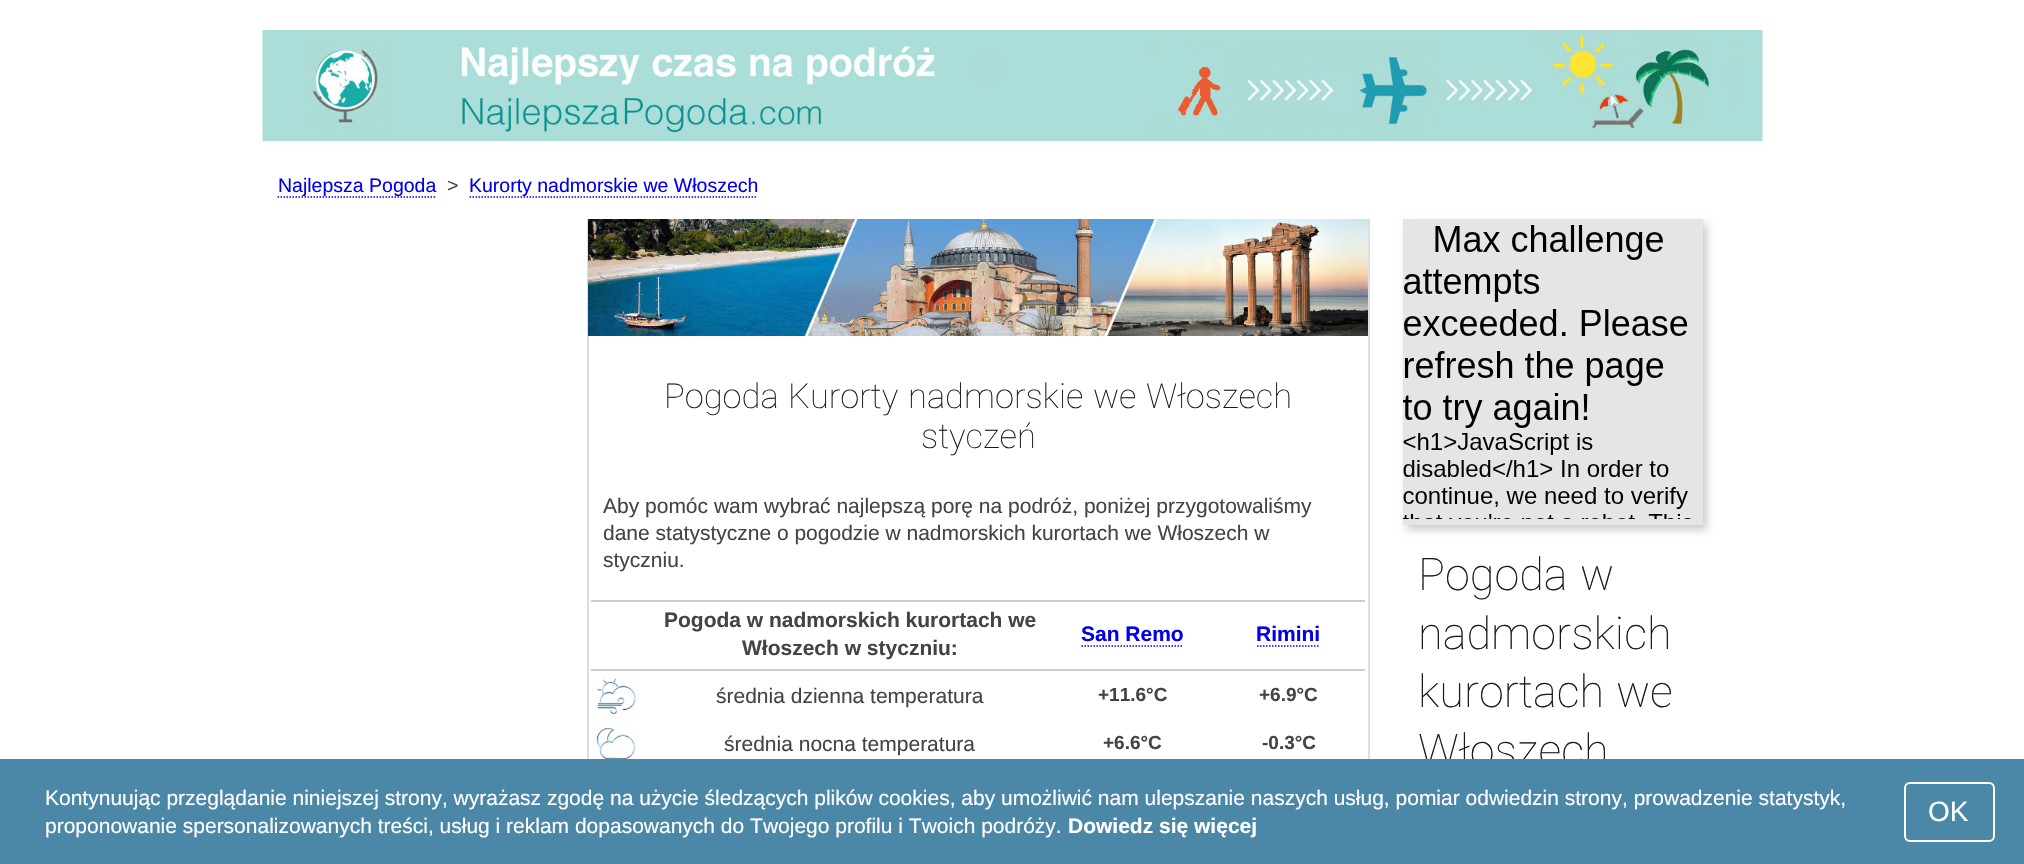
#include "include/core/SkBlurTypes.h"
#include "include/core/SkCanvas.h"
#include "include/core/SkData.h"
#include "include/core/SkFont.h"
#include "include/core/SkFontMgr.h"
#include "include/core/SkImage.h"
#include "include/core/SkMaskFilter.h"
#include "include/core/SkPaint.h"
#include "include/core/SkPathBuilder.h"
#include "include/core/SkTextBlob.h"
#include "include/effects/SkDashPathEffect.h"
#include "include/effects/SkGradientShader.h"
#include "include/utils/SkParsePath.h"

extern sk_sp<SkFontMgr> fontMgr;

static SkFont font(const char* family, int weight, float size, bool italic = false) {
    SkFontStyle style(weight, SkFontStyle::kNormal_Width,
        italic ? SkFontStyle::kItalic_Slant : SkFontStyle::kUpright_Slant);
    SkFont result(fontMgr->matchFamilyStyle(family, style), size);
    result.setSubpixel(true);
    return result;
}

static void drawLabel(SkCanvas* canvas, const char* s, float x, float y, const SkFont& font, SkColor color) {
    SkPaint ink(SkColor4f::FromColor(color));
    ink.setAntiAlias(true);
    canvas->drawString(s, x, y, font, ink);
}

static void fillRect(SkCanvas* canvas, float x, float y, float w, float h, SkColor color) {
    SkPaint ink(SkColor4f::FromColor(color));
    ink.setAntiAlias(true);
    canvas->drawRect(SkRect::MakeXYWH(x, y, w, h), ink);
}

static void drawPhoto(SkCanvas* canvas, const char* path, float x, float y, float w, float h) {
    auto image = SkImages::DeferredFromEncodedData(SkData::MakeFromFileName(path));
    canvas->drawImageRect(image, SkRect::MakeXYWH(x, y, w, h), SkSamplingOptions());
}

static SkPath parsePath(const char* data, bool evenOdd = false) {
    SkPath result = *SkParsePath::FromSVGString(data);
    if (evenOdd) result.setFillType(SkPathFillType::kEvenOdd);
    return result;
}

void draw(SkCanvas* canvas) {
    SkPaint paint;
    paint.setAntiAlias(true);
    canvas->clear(0xFFFFFFFF);
    drawPhoto(canvas, "assets/img1.png", 262, 30, 1501, 119);
    paint.setStroke(true);
    paint.setStrokeWidth(1.5f);
    paint.setColor(0xFF0000EE);
    paint.setPathEffect(SkDashPathEffect::Make({{1.5f, 1.5f}}, 0));
    canvas->drawPath(parsePath("M277.5 197H436.5"), paint);
    paint.setPathEffect(nullptr);
    SkFont font1 = font("Liberation Sans", 400, 19.5f);
    drawLabel(canvas, "Najlepsza Pogoda", 278, 192, font1, 0xFF0000EE);
    drawLabel(canvas, ">", 447, 192, font1, 0xFF444444);
    paint.setPathEffect(SkDashPathEffect::Make({{1.5f, 1.5f}}, 0));
    canvas->drawPath(parsePath("M469.5 197H757.5"), paint);
    paint.setPathEffect(nullptr);
    drawLabel(canvas, "Kurorty nadmorskie we Włoszech", 469, 192, font1, 0xFF0000EE);
    fillRect(canvas, 1368, 219, 2, 540, 0xFFDDDDDD);
    fillRect(canvas, 587, 219, 2, 540, 0xFFDDDDDD);
    drawPhoto(canvas, "assets/img2.png", 588, 219, 780, 117);
    SkFont font2 = font("Roboto", 100, 34.5f);
    drawLabel(canvas, "Pogoda", 664, 408, font2, 0xFF1A1A1A);
    drawLabel(canvas, "Kurorty", 788, 408, font2, 0xFF1A1A1A);
    drawLabel(canvas, "nadmorskie", 908, 408, font2, 0xFF1A1A1A);
    drawLabel(canvas, "we", 1093, 408, font2, 0xFF1A1A1A);
    drawLabel(canvas, "Włoszech", 1146, 408, font2, 0xFF1A1A1A);
    drawLabel(canvas, "styczeń", 921, 448, font2, 0xFF1A1A1A);
    SkFont font3 = font("Liberation Sans", 400, 21);
    drawLabel(canvas, "Aby pomóc wam wybrać najlepszą porę na podróż, poniżej przygotowaliśmy", 603, 513, font3, 0xFF444444);
    drawLabel(canvas, "dane statystyczne o pogodzie w nadmorskich kurortach we Włoszech w", 603, 540, font3, 0xFF444444);
    drawLabel(canvas, "styczniu.", 603, 567, font3, 0xFF444444);
    fillRect(canvas, 591, 600, 774, 2, 0xFFCCCCCC);
    SkFont font4 = font("Liberation Sans", 700, 21);
    drawLabel(canvas, "Pogoda w nadmorskich kurortach we", 664, 627, font4, 0xFF444444);
    drawLabel(canvas, "Włoszech w styczniu:", 742, 655, font4, 0xFF444444);
    drawLabel(canvas, "San Remo", 1081, 641, font4, 0xFF0000EE);
    paint.setPathEffect(SkDashPathEffect::Make({{1.5f, 1.5f}}, 0));
    canvas->drawPath(parsePath("M1081.5 646H1183.5"), paint);
    paint.setPathEffect(nullptr);
    drawLabel(canvas, "Rimini", 1256, 641, font4, 0xFF0000EE);
    paint.setPathEffect(SkDashPathEffect::Make({{1.5f, 1.5f}}, 0));
    canvas->drawPath(parsePath("M1257 646H1320"), paint);
    paint.setPathEffect(nullptr);
    fillRect(canvas, 591, 669, 774, 2, 0xFFCCCCCC);
    drawPhoto(canvas, "assets/img3.png", 597, 678, 39, 36);
    drawLabel(canvas, "średnia dzienna temperatura", 716, 703, font3, 0xFF444444);
    SkFont font5 = font("Liberation Sans", 700, 19);
    drawLabel(canvas, "+11.6°C", 1098, 701, font5, 0xFF444444);
    drawLabel(canvas, "+6.9°C", 1259, 701, font5, 0xFF444444);
    drawPhoto(canvas, "assets/img4.png", 596, 728, 40, 31);
    drawLabel(canvas, "średnia nocna temperatura", 724, 751, font3, 0xFF444444);
    drawLabel(canvas, "+6.6°C", 1103, 749, font5, 0xFF444444);
    drawLabel(canvas, "-0.3°C", 1262, 749, font5, 0xFF444444);
    canvas->save();
    canvas->clipPath(parsePath("M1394 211H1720V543H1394ZM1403 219H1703V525H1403Z", true), true);
    paint.setStroke(false);
    paint.setColor(0x33000000);
    paint.setMaskFilter(SkMaskFilter::MakeBlur(kNormal_SkBlurStyle, 4));
    canvas->drawRect(SkRect::MakeXYWH(1407, 224, 300, 306), paint);
    paint.setMaskFilter(nullptr);
    canvas->restore();
    fillRect(canvas, 1403, 219, 300, 306, 0x1A000000);
    drawPhoto(canvas, "assets/img5.png", 1402, 225, 289, 294);
    SkFont font6 = font("Roboto", 100, 45);
    drawLabel(canvas, "Pogoda", 1418, 590, font6, 0xFF1A1A1A);
    drawLabel(canvas, "w", 1580, 590, font6, 0xFF1A1A1A);
    drawLabel(canvas, "nadmorskich", 1418, 649, font6, 0xFF1A1A1A);
    drawLabel(canvas, "kurortach", 1418, 707, font6, 0xFF1A1A1A);
    drawLabel(canvas, "we", 1616, 707, font6, 0xFF1A1A1A);
    drawLabel(canvas, "Włoszech", 1418, 766, font6, 0xFF1A1A1A);
    fillRect(canvas, 0, 759, 2024, 105, 0xFF4B87A7);
    drawLabel(canvas, "Kontynuując przeglądanie niniejszej strony, wyrażasz zgodę na użycie śledzących plików cookies, aby umożliwić nam ulepszanie naszych usług, pomiar odwiedzin strony, prowadzenie statystyk,", 45, 805, font3, 0xFFFFFFFF);
    drawLabel(canvas, "proponowanie spersonalizowanych treści, usług i reklam dopasowanych do Twojego profilu i Twoich podróży.", 45, 833, font3, 0xFFFFFFFF);
    drawLabel(canvas, "Dowiedz się więcej", 1068, 833, font4, 0xFFFFFFFF);
    paint.setStroke(true);
    paint.setStrokeWidth(2);
    paint.setColor(0xFFFFFFFF);
    canvas->drawRoundRect(SkRect::MakeXYWH(1905, 783, 89, 58), 5, 5, paint);
    SkFont font7 = font("Liberation Sans", 400, 28);
    drawLabel(canvas, "OK", 1928, 821, font7, 0xFFFFFFFF);
}
